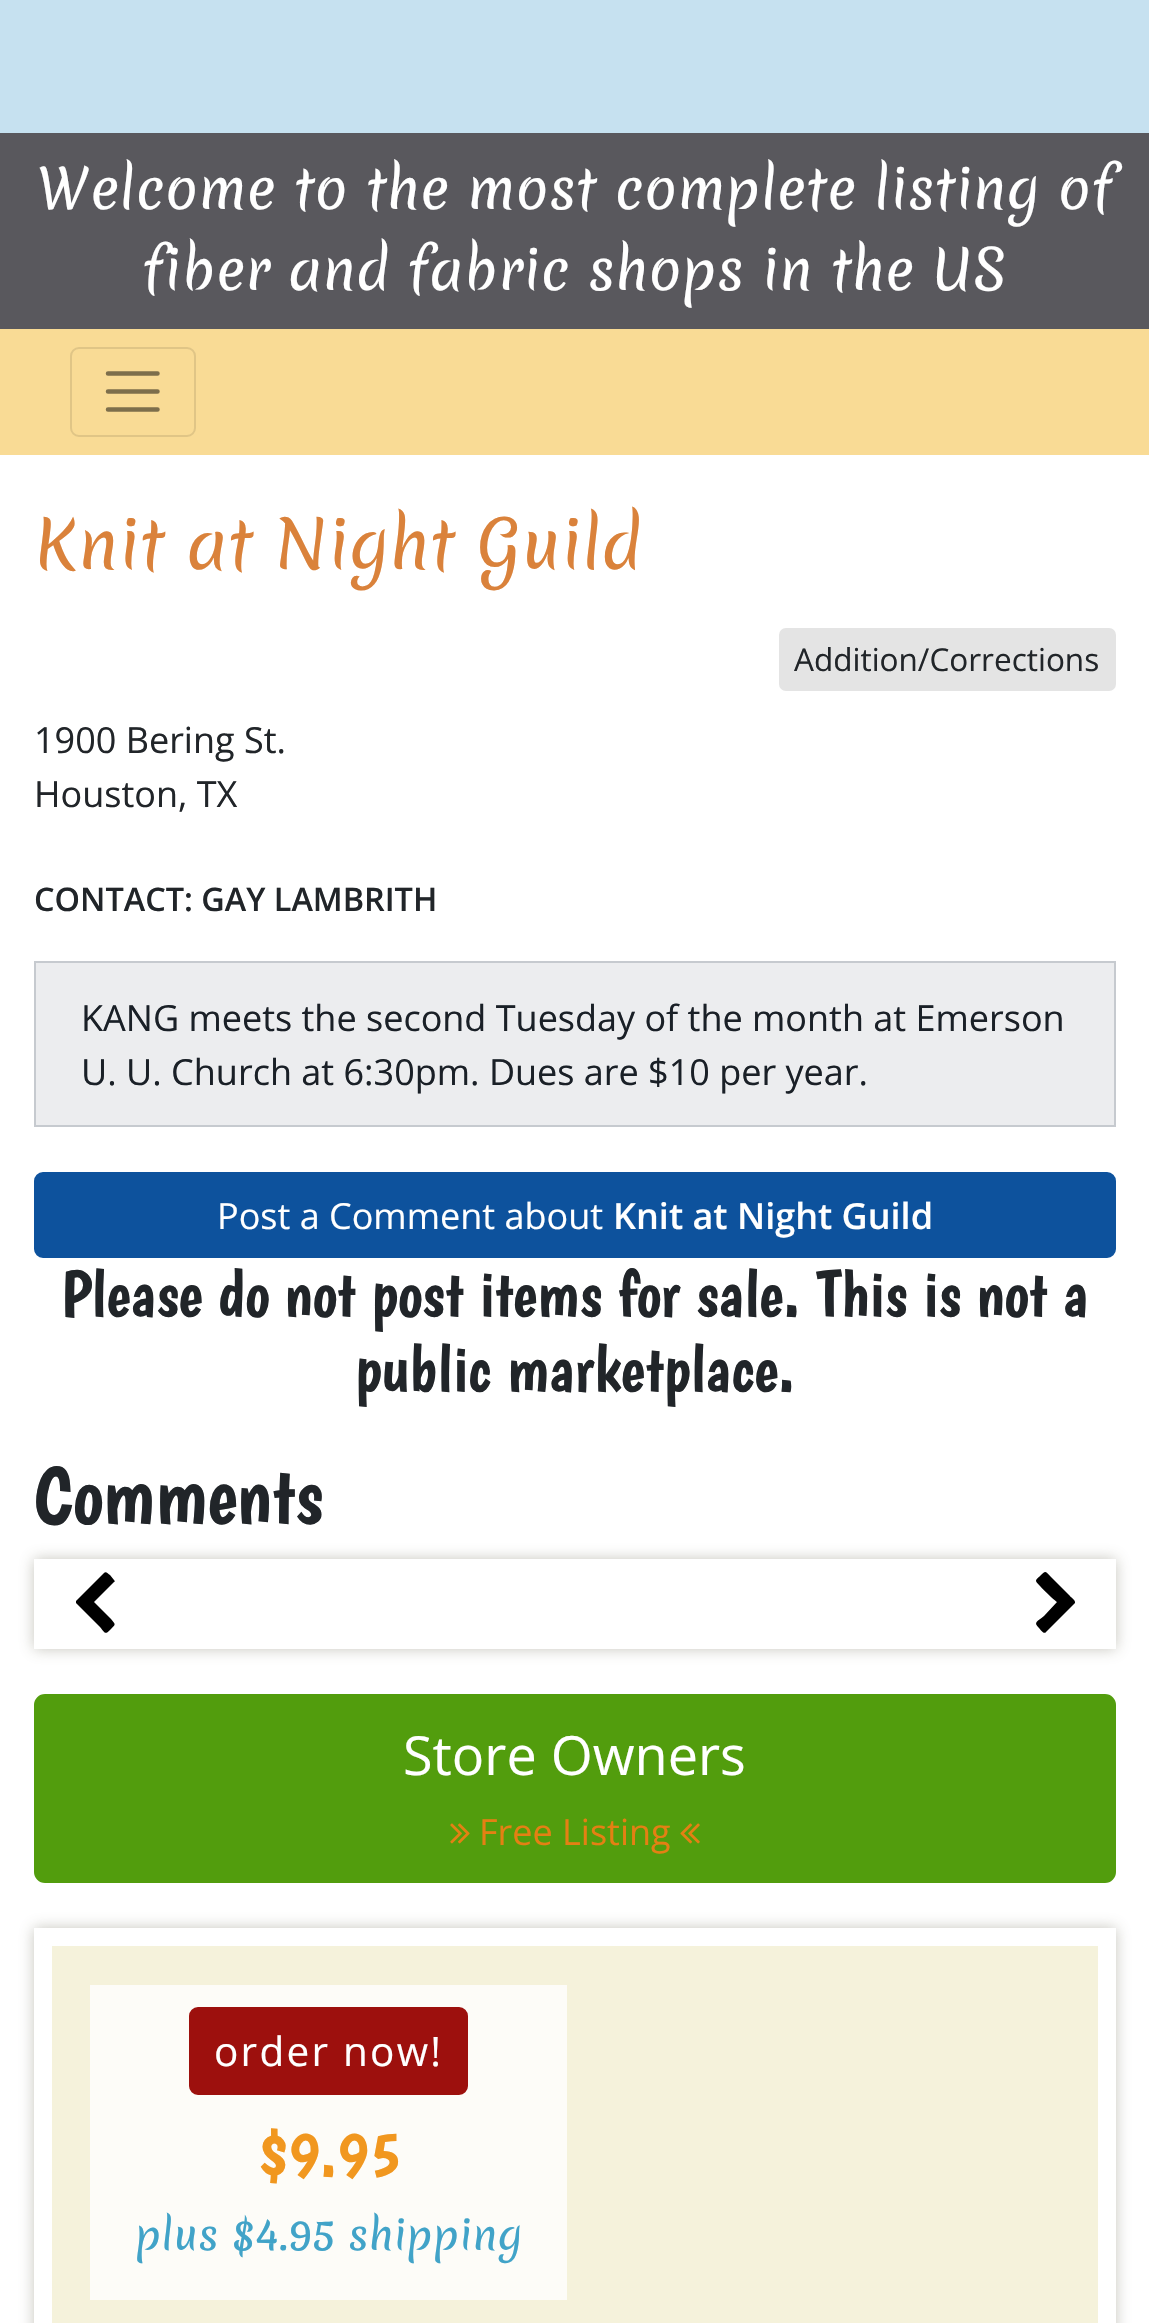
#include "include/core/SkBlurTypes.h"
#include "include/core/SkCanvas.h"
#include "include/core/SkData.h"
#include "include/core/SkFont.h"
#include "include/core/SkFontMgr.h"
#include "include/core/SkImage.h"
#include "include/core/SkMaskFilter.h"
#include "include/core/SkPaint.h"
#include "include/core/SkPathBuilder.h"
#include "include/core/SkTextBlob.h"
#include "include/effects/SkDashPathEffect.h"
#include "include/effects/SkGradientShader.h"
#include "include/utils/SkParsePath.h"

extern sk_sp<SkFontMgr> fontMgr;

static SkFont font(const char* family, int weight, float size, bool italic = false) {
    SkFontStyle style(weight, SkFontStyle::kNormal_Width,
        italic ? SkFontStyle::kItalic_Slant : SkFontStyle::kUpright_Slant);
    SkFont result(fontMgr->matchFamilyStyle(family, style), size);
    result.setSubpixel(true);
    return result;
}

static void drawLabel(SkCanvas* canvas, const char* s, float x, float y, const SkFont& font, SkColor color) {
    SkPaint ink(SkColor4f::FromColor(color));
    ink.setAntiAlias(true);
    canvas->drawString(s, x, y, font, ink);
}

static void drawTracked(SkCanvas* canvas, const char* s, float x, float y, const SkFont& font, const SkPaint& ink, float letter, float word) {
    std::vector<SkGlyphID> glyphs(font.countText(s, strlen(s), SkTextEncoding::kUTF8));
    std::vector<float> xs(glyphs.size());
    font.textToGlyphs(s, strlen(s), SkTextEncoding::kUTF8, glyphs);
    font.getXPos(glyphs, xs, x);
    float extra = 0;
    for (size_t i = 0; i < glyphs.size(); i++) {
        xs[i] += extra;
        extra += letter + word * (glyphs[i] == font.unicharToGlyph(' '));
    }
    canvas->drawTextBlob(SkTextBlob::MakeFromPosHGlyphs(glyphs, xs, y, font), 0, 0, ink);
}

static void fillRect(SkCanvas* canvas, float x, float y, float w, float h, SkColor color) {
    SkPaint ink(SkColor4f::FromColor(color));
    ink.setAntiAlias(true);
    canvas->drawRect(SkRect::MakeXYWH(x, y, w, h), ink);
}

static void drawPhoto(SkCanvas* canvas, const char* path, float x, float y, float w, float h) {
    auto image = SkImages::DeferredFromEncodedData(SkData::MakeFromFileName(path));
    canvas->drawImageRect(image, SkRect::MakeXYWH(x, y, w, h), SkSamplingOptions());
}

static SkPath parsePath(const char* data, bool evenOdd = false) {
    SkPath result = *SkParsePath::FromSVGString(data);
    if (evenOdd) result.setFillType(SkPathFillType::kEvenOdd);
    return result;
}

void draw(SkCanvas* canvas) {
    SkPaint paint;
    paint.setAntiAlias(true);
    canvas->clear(0xFFFFFFFF);
    fillRect(canvas, 0, 0, 1149, 133, 0xFFC6E1F0);
    fillRect(canvas, 0, 133, 1149, 196, 0xFF59585D);
    SkFont font1 = font("Merienda", 400, 54);
    drawLabel(canvas, "Welcome to the most complete listing of", 37, 209, font1, 0xFFFFFFFF);
    drawLabel(canvas, "fiber and fabric shops in the US", 142, 290, font1, 0xFFFFFFFF);
    fillRect(canvas, 0, 329, 1149, 126, 0xFFF9DB95);
    paint.setStroke(true);
    paint.setStrokeWidth(2);
    paint.setColor(0xFFE0C586);
    canvas->drawRoundRect(SkRect::MakeXYWH(71, 348, 124, 88), 8, 8, paint);
    paint.setStrokeWidth(4.5f);
    paint.setStrokeCap(SkPaint::kRound_Cap);
    paint.setColor(0xFF7D6E4B);
    canvas->drawPath(parsePath("M108 373.5H157.5M108 391.5H157.5M108 409.5H157.5"), paint);
    SkFont font2 = font("Merienda", 400, 65.25f);
    drawLabel(canvas, "Knit at Night Guild", 34, 569, font2, 0xFFDA823B);
    paint.setStroke(false);
    paint.setColor(0xFFE4E4E4);
    canvas->drawRoundRect(SkRect::MakeXYWH(780, 629, 335, 61), 6, 6, paint);
    paint.setStroke(true);
    paint.setStrokeWidth(2);
    paint.setStrokeCap(SkPaint::kButt_Cap);
    canvas->drawRoundRect(SkRect::MakeXYWH(780, 629, 335, 61), 6, 6, paint);
    SkFont font3 = font("Open Sans", 400, 31.5f);
    drawLabel(canvas, "Addition/Corrections", 794, 671, font3, 0xFF212529);
    SkFont font4 = font("Open Sans", 400, 36);
    drawLabel(canvas, "1900 Bering St.", 34, 753, font4, 0xFF212529);
    drawLabel(canvas, "Houston, TX", 34, 807, font4, 0xFF212529);
    SkFont font5 = font("Open Sans", 600, 32.4f);
    drawLabel(canvas, "CONTACT: GAY LAMBRITH", 34, 911, font5, 0xFF212529);
    paint.setStroke(false);
    paint.setColor(0xFFECEDEF);
    canvas->drawRect(SkRect::MakeXYWH(35, 962, 1080, 164), paint);
    paint.setStroke(true);
    paint.setColor(0xFFC6CACF);
    canvas->drawRect(SkRect::MakeXYWH(35, 962, 1080, 164), paint);
    drawLabel(canvas, "KANG meets the second Tuesday of the month at Emerson", 81, 1031, font4, 0xFF1A2027);
    drawLabel(canvas, "U. U. Church at 6:30pm. Dues are $10 per year.", 81, 1085, font4, 0xFF1A2027);
    paint.setStroke(false);
    paint.setColor(0xFF0D529D);
    canvas->drawRoundRect(SkRect::MakeXYWH(35, 1173, 1080, 84), 8, 8, paint);
    paint.setStroke(true);
    canvas->drawRoundRect(SkRect::MakeXYWH(35, 1173, 1080, 84), 8, 8, paint);
    drawLabel(canvas, "Post a Comment about", 217, 1229, font4, 0xFFFFFFFF);
    SkFont font6 = font("Open Sans", 600, 36);
    drawLabel(canvas, "Knit at Night Guild", 613, 1229, font6, 0xFFFFFFFF);
    SkFont font7 = font("Boogaloo", 400, 65.25f);
    drawLabel(canvas, "Please do not post items for sale. This is not a", 61, 1316, font7, 0xFF212529);
    drawLabel(canvas, "public marketplace.", 355, 1391, font7, 0xFF212529);
    SkFont font8 = font("Boogaloo", 400, 81);
    drawLabel(canvas, "Comments", 34, 1523, font8, 0xFF212529);
    canvas->save();
    canvas->clipPath(parsePath("M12 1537H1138V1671H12ZM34 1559H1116V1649H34Z", true), true);
    paint.setStroke(false);
    paint.setColor(0x595C5942);
    paint.setMaskFilter(SkMaskFilter::MakeBlur(kNormal_SkBlurStyle, 7));
    canvas->drawRect(SkRect::MakeXYWH(34, 1559, 1082, 90), paint);
    paint.setMaskFilter(nullptr);
    canvas->restore();
    paint.setStroke(true);
    paint.setStrokeWidth(18);
    paint.setColor(0xFFFFFFFF);
    canvas->drawRect(SkRect::MakeXYWH(43, 1568, 1064, 72), paint);
    paint.setStroke(false);
    paint.setColor(0xFF000000);
    canvas->drawPath(parsePath("M114 1582L94 1602L111 1619C116 1625 116 1624 110 1630C105 1635 105 1633 100 1627L76 1603V1601L104 1573C106 1571 108 1574 110 1575L114 1580C115 1581 115 1582 114 1582Z"), paint);
    canvas->drawPath(parsePath("M1074 1604L1046 1632C1044 1635 1040 1629 1039 1628C1033 1622 1037 1622 1044 1616L1057 1602C1054 1600 1036 1583 1036 1581C1036 1579 1039 1577 1040 1576C1046 1570 1045 1571 1051 1577L1070 1596C1070 1597 1076 1600 1075 1603Z"), paint);
    paint.setColor(0xFF529D0D);
    canvas->drawRoundRect(SkRect::MakeXYWH(35, 1695, 1080, 187), 10, 10, paint);
    paint.setStroke(true);
    paint.setStrokeWidth(2);
    canvas->drawRoundRect(SkRect::MakeXYWH(35, 1695, 1080, 187), 10, 10, paint);
    SkFont font9 = font("Open Sans", 400, 54);
    drawLabel(canvas, "Store Owners", 403, 1775, font9, 0xFFFFFFFF);
    drawPhoto(canvas, "assets/img1.png", 450, 1823, 20, 21);
    drawLabel(canvas, "Free Listing", 479, 1845, font4, 0xFFE48013);
    drawPhoto(canvas, "assets/img2.png", 680, 1823, 20, 21);
    paint.setStroke(false);
    paint.setColor(0x595C5942);
    paint.setMaskFilter(SkMaskFilter::MakeBlur(kNormal_SkBlurStyle, 7));
    canvas->drawRect(SkRect::MakeXYWH(34, 1928, 1082, 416), paint);
    paint.setMaskFilter(nullptr);
    paint.setColor(0xFFF5F2DB);
    canvas->drawRect(SkRect::MakeXYWH(43, 1937, 1064, 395), paint);
    paint.setStroke(true);
    paint.setStrokeWidth(18);
    paint.setColor(0xFFFFFFFF);
    canvas->drawRect(SkRect::MakeXYWH(43, 1937, 1064, 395), paint);
    fillRect(canvas, 90, 1985, 477, 315, 0xFFFDFCF8);
    paint.setStroke(false);
    paint.setColor(0xFF9D100D);
    canvas->drawRoundRect(SkRect::MakeXYWH(190, 2008, 277, 86), 8, 8, paint);
    paint.setStroke(true);
    paint.setStrokeWidth(2);
    canvas->drawRoundRect(SkRect::MakeXYWH(190, 2008, 277, 86), 8, 8, paint);
    SkFont font10 = font("Open Sans", 400, 40.5f);
    paint.setStroke(false);
    paint.setColor(0xFFFFFFFF);
    drawTracked(canvas, "order now!", 214, 2066, font10, paint, 2.25f, 0);
    drawLabel(canvas, "$9.95", 257, 2176, font7, 0xFFF1971F);
    SkFont font11 = font("Merienda", 400, 40.5f);
    drawLabel(canvas, "plus $4.95 shipping", 135, 2250, font11, 0xFF41A3C8);
}
